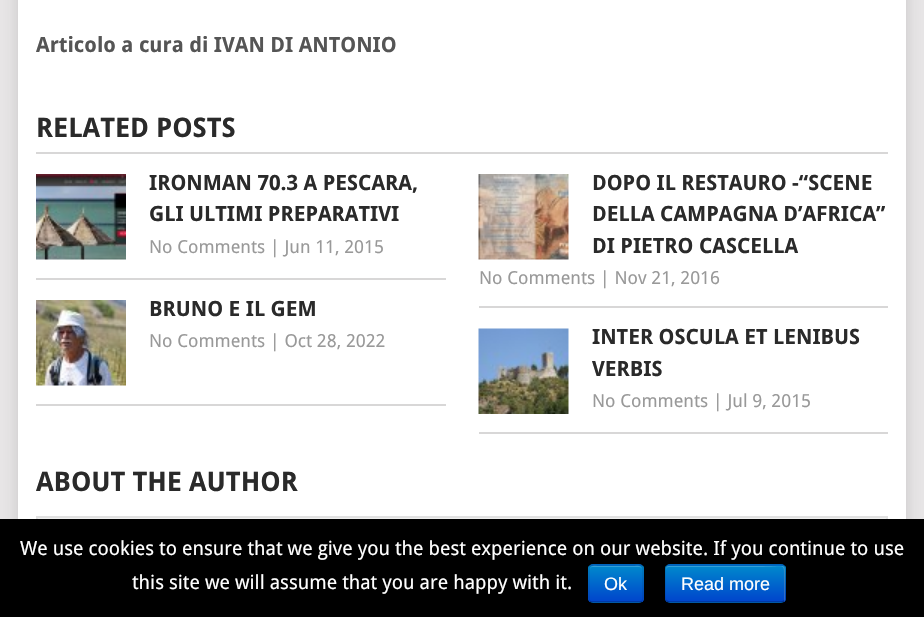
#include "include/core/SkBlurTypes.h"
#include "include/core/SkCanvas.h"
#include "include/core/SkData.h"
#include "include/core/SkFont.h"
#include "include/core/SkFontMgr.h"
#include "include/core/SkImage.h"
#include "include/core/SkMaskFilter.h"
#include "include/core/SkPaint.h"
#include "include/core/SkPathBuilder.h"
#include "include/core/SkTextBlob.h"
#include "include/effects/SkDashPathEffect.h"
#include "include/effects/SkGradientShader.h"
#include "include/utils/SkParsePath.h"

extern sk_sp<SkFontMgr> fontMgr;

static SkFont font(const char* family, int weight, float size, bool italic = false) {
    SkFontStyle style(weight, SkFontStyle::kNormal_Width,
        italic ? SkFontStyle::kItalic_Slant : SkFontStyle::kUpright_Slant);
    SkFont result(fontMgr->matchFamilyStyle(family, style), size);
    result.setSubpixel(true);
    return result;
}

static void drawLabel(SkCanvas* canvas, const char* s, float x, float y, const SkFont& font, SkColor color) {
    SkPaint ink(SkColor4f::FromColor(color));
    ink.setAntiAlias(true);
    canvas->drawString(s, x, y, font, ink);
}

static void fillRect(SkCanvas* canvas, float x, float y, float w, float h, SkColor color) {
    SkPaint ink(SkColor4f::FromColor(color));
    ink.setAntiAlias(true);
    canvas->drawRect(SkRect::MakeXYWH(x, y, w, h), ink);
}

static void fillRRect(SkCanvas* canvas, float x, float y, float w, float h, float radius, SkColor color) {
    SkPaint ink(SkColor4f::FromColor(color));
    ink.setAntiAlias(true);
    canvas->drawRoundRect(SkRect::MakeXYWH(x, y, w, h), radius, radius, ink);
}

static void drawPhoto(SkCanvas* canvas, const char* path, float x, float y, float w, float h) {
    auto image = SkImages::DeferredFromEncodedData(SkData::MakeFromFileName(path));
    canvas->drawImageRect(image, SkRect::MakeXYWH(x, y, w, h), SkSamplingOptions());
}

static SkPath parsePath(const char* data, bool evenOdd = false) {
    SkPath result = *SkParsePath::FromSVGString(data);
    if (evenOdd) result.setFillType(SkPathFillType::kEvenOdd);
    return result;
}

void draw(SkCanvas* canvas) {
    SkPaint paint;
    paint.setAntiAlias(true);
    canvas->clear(0xFFE7E5E6);
    paint.setColor(0x2B323232);
    paint.setMaskFilter(SkMaskFilter::MakeBlur(kNormal_SkBlurStyle, 7.5f));
    canvas->drawRect(SkRect::MakeXYWH(18, -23, 888, 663), paint);
    paint.setMaskFilter(nullptr);
    fillRect(canvas, 18, 0, 888, 519, 0xFFFFFFFF);
    SkFont font1 = font("Droid Sans", 700, 21);
    drawLabel(canvas, "Articolo a cura di IVAN DI ANTONIO", 36, 52, font1, 0xFF555555);
    fillRect(canvas, 36, 152, 852, 2, 0xFFD8D7D7);
    SkFont font2 = font("Droid Sans", 700, 27);
    drawLabel(canvas, "RELATED POSTS", 36, 137, font2, 0xFF2A2A2A);
    fillRect(canvas, 36, 278, 410, 2, 0xFFD8D7D7);
    drawPhoto(canvas, "assets/img1.png", 36, 174, 90, 86);
    drawLabel(canvas, "IRONMAN 70.3 A PESCARA,", 149, 190, font1, 0xFF2A2A2A);
    drawLabel(canvas, "GLI ULTIMI PREPARATIVI", 149, 221, font1, 0xFF2A2A2A);
    SkFont font3 = font("Droid Sans", 400, 18);
    drawLabel(canvas, "No Comments | Jun 11, 2015", 149, 253, font3, 0xFF999999);
    fillRect(canvas, 479, 306, 409, 2, 0xFFD8D7D7);
    drawPhoto(canvas, "assets/img2.png", 478, 174, 91, 86);
    drawLabel(canvas, "DOPO IL RESTAURO -“SCENE", 592, 190, font1, 0xFF2A2A2A);
    drawLabel(canvas, "DELLA CAMPAGNA D’AFRICA”", 592, 221, font1, 0xFF2A2A2A);
    drawLabel(canvas, "DI PIETRO CASCELLA", 592, 253, font1, 0xFF2A2A2A);
    drawLabel(canvas, "No Comments | Nov 21, 2016", 479, 284, font3, 0xFF999999);
    fillRect(canvas, 36, 404, 410, 2, 0xFFD8D7D7);
    drawPhoto(canvas, "assets/img3.png", 36, 300, 90, 86);
    drawLabel(canvas, "BRUNO E IL GEM", 149, 316, font1, 0xFF2A2A2A);
    drawLabel(canvas, "No Comments | Oct 28, 2022", 149, 347, font3, 0xFF999999);
    fillRect(canvas, 479, 432, 409, 2, 0xFFD8D7D7);
    drawPhoto(canvas, "assets/img4.png", 478, 328, 91, 86);
    drawLabel(canvas, "INTER OSCULA ET LENIBUS", 592, 344, font1, 0xFF2A2A2A);
    drawLabel(canvas, "VERBIS", 592, 376, font1, 0xFF2A2A2A);
    drawLabel(canvas, "No Comments | Jul 9, 2015", 592, 407, font3, 0xFF999999);
    drawLabel(canvas, "ABOUT THE AUTHOR", 36, 491, font2, 0xFF2A2A2A);
    fillRect(canvas, 38, 518, 848, 1, 0xFFEEEEEE);
    paint.setStroke(true);
    paint.setStrokeWidth(2);
    paint.setColor(0xFFE1E1E1);
    canvas->drawRect(SkRect::MakeXYWH(37, 517, 850, 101), paint);
    fillRect(canvas, 0, 519, 924, 98, 0xFF000000);
    SkFont font4 = font("Droid Sans", 400, 19.5f);
    drawLabel(canvas, "We use cookies to ensure that we give you the best experience on our website. If you continue to use", 20, 555, font4, 0xFFFFFFFF);
    drawLabel(canvas, "this site we will assume that you are happy with it.", 132, 589, font4, 0xFFFFFFFF);
    fillRRect(canvas, 588, 564, 56, 39, 5, 0xFF006DCC);
    canvas->save();
    canvas->clipPath(parsePath("M593 564H639C642 564 644 566 644 569V598C644 601 642 603 639 603H593C590 603 588 601 588 598V569C588 566 590 564 593 564Z"), true);
    paint.setStroke(false);
    {
        const SkColor colors[] = {0xFF0088CC, 0xFF0044CC};
        const float stops[] = {0, 1};
        const SkPoint ends[] = {{616, 566}, {616, 602}};
        paint.setShader(SkGradientShader::MakeLinear(ends, colors, stops, 2, SkTileMode::kClamp));
        paint.setAlpha(255);
    }
    canvas->drawRect(SkRect::MakeXYWH(588, 566, 56, 36), paint);
    canvas->restore();
    paint.setShader(nullptr);
    paint.setColor(0xFF339FD6);
    canvas->drawPath(parsePath("M592 567H639C641 567 642 568 642 570C642 564 636 566 631 566H601C596 566 590 564 590 570C590 568 591 567 592 567Z"), paint);
    paint.setStroke(true);
    paint.setStrokeWidth(1.5f);
    paint.setColor(0x40000000);
    canvas->drawPath(parsePath("M641.5 601C641 602 640 602 639 602H592.5C591.5 602 590.5 602 590 601"), paint);
    paint.setColor(0x1A000000);
    canvas->drawPath(parsePath("M590 601C589 600.5 589 599.5 589 598.5V568.5C589 567.5 589 566.5 590 566C590.5 565 591.5 565 592.5 565H639C640 565 641 565 641.5 566C642.5 566.5 643 567.5 643 568.5V598.5C643 599.5 642.5 600.5 641.5 601"), paint);
    SkFont font5 = font("Liberation Sans", 400, 18);
    drawLabel(canvas, "Ok", 604, 590, font5, 0xFFFFFFFF);
    fillRRect(canvas, 665, 564, 121, 39, 5, 0xFF006DCC);
    canvas->save();
    canvas->clipPath(parsePath("M670 564H781C784 564 786 566 786 569V598C786 601 784 603 781 603H670C667 603 665 601 665 598V569C665 566 667 564 670 564Z"), true);
    paint.setStroke(false);
    {
        const SkColor colors[] = {0xFF0088CC, 0xFF0044CC};
        const float stops[] = {0, 1};
        const SkPoint ends[] = {{725, 566}, {725, 602}};
        paint.setShader(SkGradientShader::MakeLinear(ends, colors, stops, 2, SkTileMode::kClamp));
        paint.setAlpha(255);
    }
    canvas->drawRect(SkRect::MakeXYWH(665, 566, 121, 36), paint);
    canvas->restore();
    paint.setShader(nullptr);
    paint.setColor(0x33FFFFFF);
    canvas->drawPath(parsePath("M669 567H763C786 567 784 562 784 580V601C785 601 785 600 785 599V569C785 567 784 566 782 566H669C667 566 666 567 666 569V570C666 568 667 567 669 567Z"), paint);
    paint.setStroke(true);
    paint.setColor(0x40000000);
    canvas->drawPath(parsePath("M784 601L782 602H688H669L666.5 601"), paint);
    paint.setColor(0x1A000000);
    canvas->drawPath(parsePath("M666.5 601C664 598.5 665 591 665 588.5V573.5C665 570.5 664.5 565 669 565H763C788.5 565 785 560 785 583.5V593.5C785 595.5 786 599.5 784 601"), paint);
    drawLabel(canvas, "Read more", 681, 590, font5, 0xFFFFFFFF);
}
